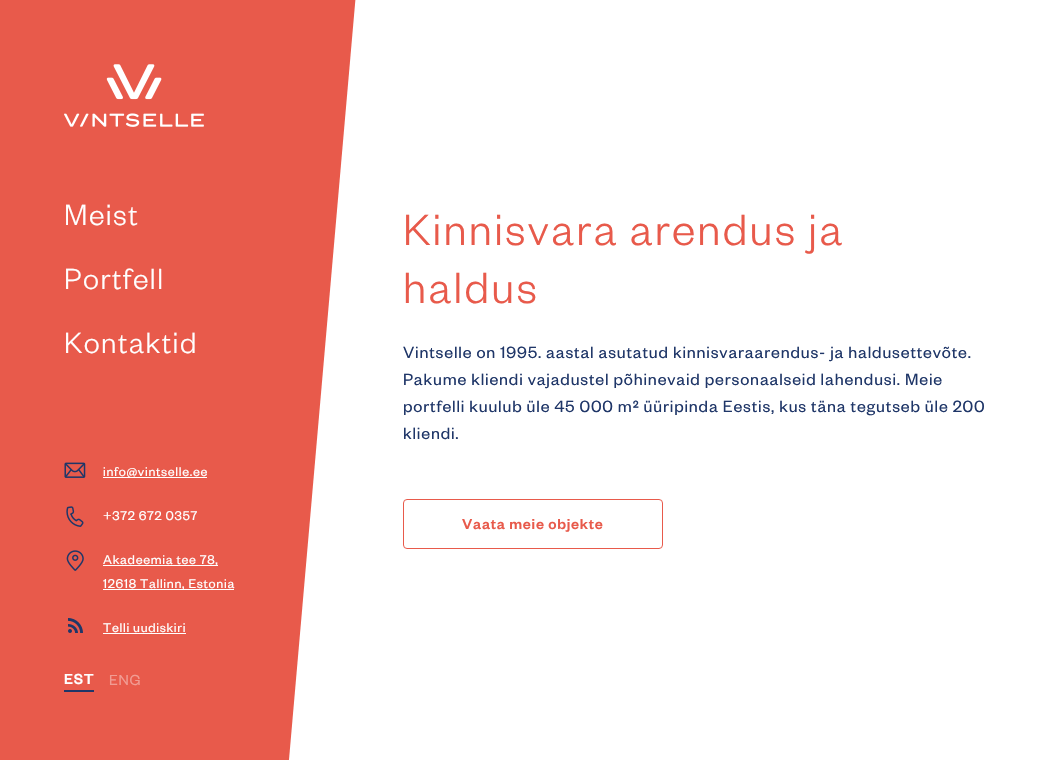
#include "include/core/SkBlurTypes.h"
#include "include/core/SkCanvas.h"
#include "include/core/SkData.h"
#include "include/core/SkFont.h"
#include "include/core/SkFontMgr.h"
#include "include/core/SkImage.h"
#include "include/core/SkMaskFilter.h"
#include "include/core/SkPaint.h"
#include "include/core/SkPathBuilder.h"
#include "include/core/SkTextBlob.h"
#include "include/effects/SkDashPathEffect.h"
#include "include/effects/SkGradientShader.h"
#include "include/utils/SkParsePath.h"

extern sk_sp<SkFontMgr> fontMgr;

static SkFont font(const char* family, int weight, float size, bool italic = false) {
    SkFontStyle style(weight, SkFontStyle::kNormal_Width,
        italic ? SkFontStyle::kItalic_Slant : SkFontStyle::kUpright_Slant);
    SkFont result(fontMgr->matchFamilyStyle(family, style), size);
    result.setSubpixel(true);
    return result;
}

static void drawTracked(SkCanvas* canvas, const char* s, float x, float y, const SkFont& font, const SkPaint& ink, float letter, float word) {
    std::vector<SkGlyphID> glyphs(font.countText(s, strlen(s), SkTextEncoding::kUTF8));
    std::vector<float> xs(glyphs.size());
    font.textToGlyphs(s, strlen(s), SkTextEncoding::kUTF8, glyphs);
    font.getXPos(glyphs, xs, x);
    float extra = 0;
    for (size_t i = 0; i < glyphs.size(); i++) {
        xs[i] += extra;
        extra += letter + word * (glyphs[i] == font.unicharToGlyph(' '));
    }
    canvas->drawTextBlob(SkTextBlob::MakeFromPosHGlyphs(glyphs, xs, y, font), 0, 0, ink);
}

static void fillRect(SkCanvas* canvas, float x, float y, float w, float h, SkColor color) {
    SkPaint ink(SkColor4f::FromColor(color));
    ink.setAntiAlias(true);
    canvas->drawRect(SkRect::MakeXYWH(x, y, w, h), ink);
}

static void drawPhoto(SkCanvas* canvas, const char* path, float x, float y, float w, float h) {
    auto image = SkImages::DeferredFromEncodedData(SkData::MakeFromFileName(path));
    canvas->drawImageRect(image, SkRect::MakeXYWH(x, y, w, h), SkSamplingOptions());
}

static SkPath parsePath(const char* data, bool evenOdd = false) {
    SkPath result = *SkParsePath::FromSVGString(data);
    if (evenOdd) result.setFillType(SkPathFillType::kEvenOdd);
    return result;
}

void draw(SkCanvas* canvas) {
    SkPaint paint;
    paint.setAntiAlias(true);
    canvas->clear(0xFFFFFFFF);
    paint.setColor(0xFFE85A4B);
    canvas->drawPath(parsePath("M-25-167L367-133L281 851L-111 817Z"), paint);
    drawPhoto(canvas, "assets/img1.png", 64, 64, 140, 63);
    SkFont font1 = font("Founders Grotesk", 300, 32);
    paint.setColor(0xFFFFFFFF);
    drawTracked(canvas, "Meist", 64, 225, font1, paint, 1.5f, 0);
    drawTracked(canvas, "Portfell", 64, 289, font1, paint, 1.5f, 0);
    drawTracked(canvas, "Kontaktid", 64, 353, font1, paint, 1.5f, 0);
    drawPhoto(canvas, "assets/img2.png", 64, 462, 22, 16);
    fillRect(canvas, 103, 477, 104, 1, 0xFFFFFFFF);
    SkFont font2 = font("Founders Grotesk", 400, 14);
    drawTracked(canvas, "info@vintselle.ee", 103, 476, font2, paint, 0.7f, 0);
    drawPhoto(canvas, "assets/img3.png", 66, 506, 18, 21);
    drawTracked(canvas, "+372 672 0357", 103, 520, font2, paint, 0.7f, 0);
    drawPhoto(canvas, "assets/img4.png", 66, 550, 18, 21);
    fillRect(canvas, 103, 565, 115, 1, 0xFFFFFFFF);
    drawTracked(canvas, "Akadeemia tee 78,", 103, 564, font2, paint, 0.7f, 0);
    fillRect(canvas, 103, 589, 131, 1, 0xFFFFFFFF);
    drawTracked(canvas, "12618 Tallinn, Estonia", 103, 588, font2, paint, 0.7f, 0);
    drawPhoto(canvas, "assets/img5.png", 68, 618, 15, 15);
    drawTracked(canvas, "Telli uudiskiri", 103, 632, font2, paint, 0.7f, 0);
    fillRect(canvas, 103, 633, 83, 1, 0xFFFFFFFF);
    SkFont font3 = font("Founders Grotesk", 500, 16);
    drawTracked(canvas, "EST", 64, 684, font3, paint, 0.7f, 0);
    fillRect(canvas, 64, 690, 30, 2, 0xFF1F3668);
    SkFont font4 = font("Founders Grotesk", 400, 16);
    paint.setColor(0xFFF19C93);
    drawTracked(canvas, "ENG", 109, 685, font4, paint, 0.7f, 0);
    SkFont font5 = font("Founders Grotesk", 300, 48);
    paint.setColor(0xFFE85A4B);
    drawTracked(canvas, "Kinnisvara arendus ja", 403, 245, font5, paint, 2.25f, 0);
    drawTracked(canvas, "haldus", 403, 303, font5, paint, 2.25f, 0);
    SkFont font6 = font("Founders Grotesk", 400, 18);
    paint.setColor(0xFF1F3668);
    drawTracked(canvas, "Vintselle on 1995. aastal asutatud kinnisvaraarendus- ja haldusettevõte.", 403, 358, font6, paint, 0.85f, 0);
    drawTracked(canvas, "Pakume kliendi vajadustel põhinevaid personaalseid lahendusi. Meie", 403, 385, font6, paint, 0.85f, 0);
    drawTracked(canvas, "portfelli kuulub üle 45 000 m² üüripinda Eestis, kus täna tegutseb üle 200", 403, 412, font6, paint, 0.85f, 0);
    drawTracked(canvas, "kliendi.", 403, 439, font6, paint, 0.85f, 0);
    paint.setStroke(true);
    paint.setStrokeWidth(1);
    paint.setColor(0xFFE85A4B);
    canvas->drawRoundRect(SkRect::MakeXYWH(403.5f, 499.5f, 259, 49), 3.5f, 3.5f, paint);
    paint.setStroke(false);
    drawTracked(canvas, "Vaata meie objekte", 462, 529, font3, paint, 0.75f, 0);
}
